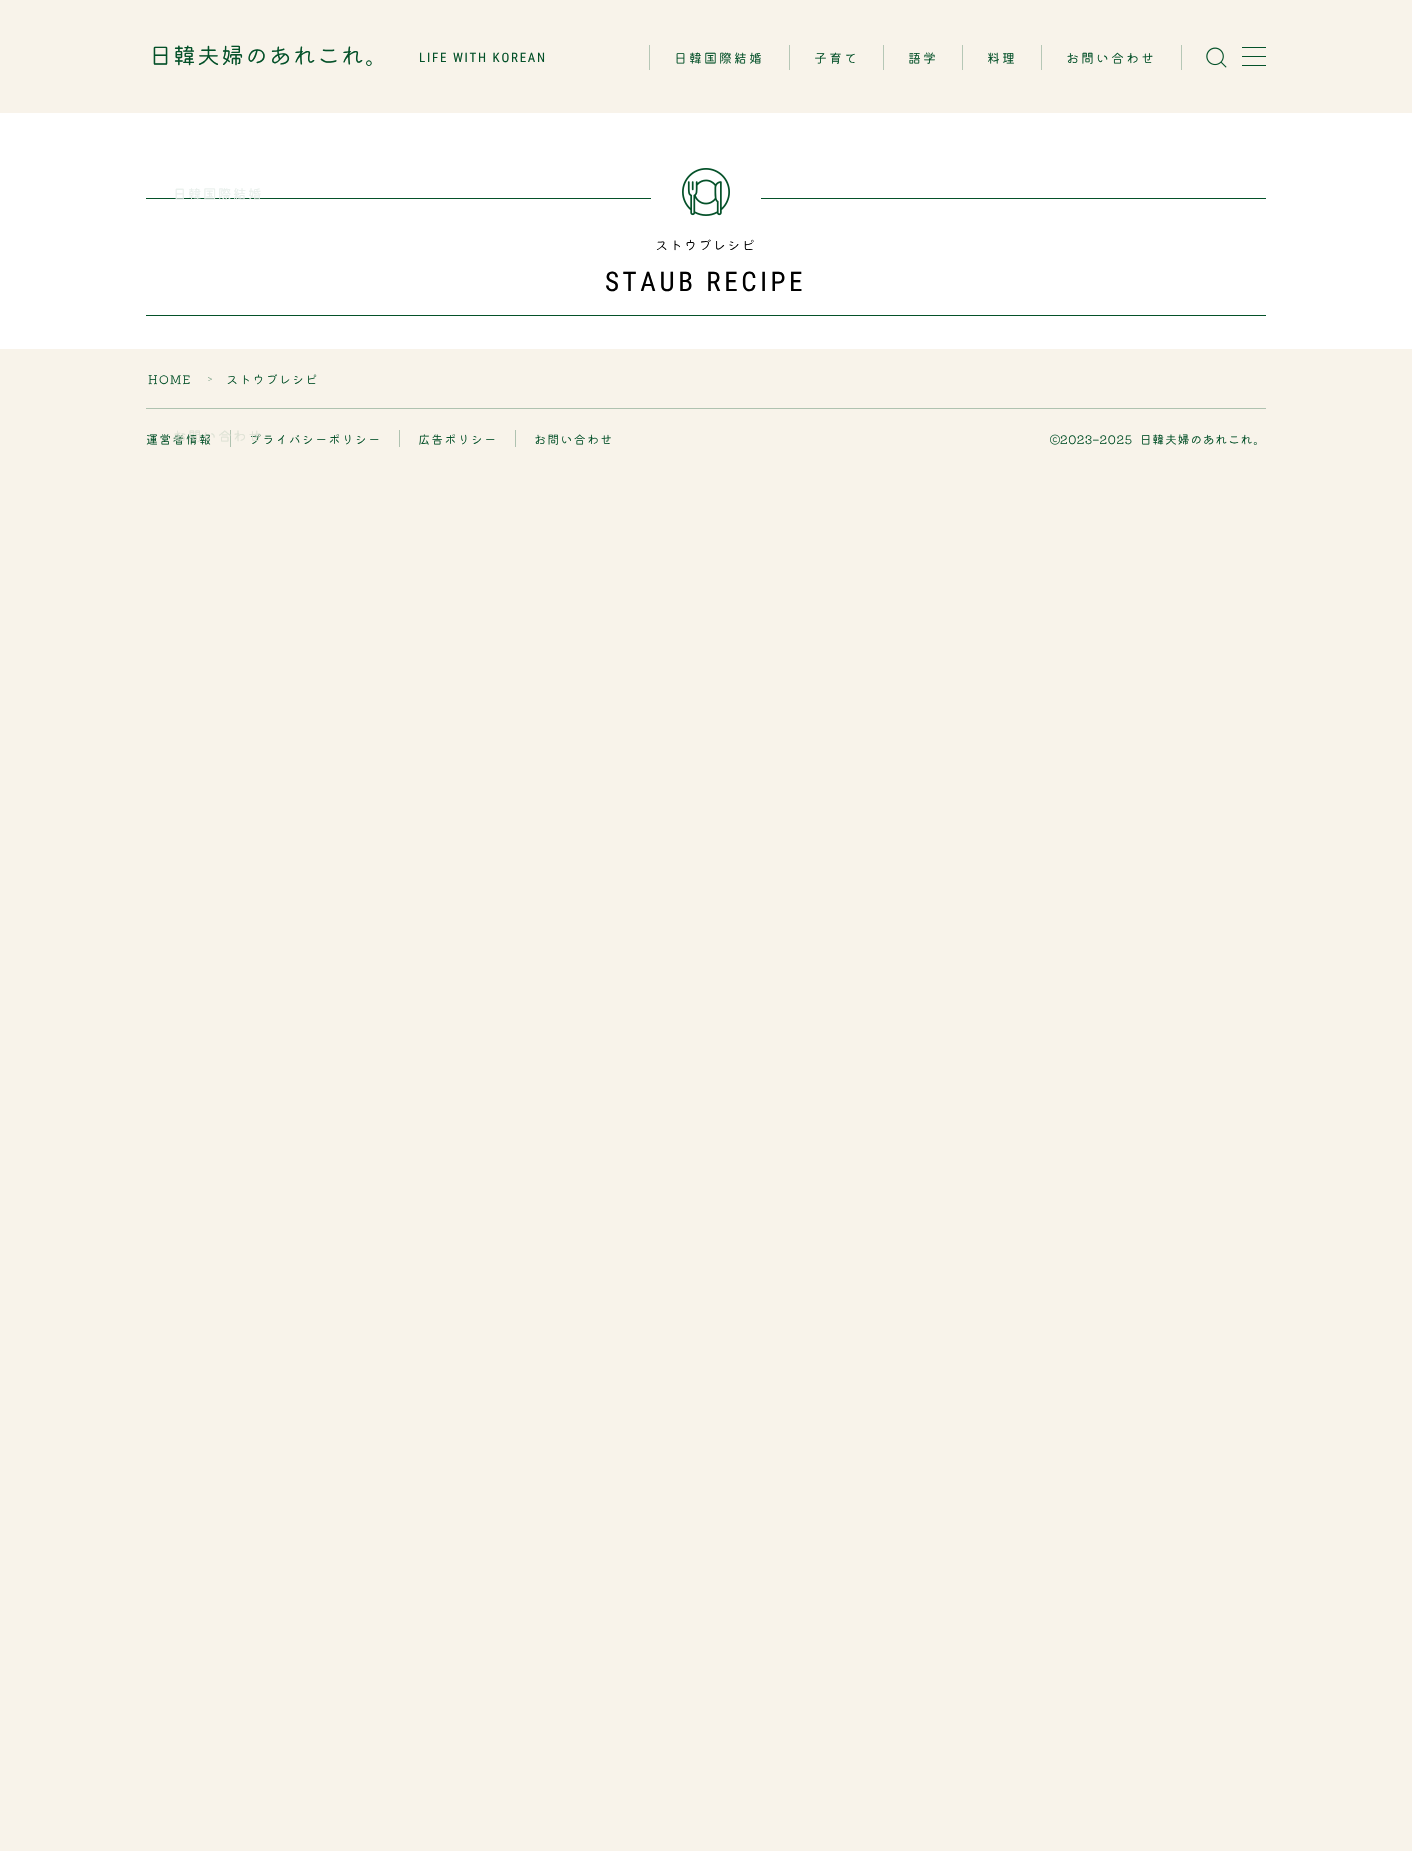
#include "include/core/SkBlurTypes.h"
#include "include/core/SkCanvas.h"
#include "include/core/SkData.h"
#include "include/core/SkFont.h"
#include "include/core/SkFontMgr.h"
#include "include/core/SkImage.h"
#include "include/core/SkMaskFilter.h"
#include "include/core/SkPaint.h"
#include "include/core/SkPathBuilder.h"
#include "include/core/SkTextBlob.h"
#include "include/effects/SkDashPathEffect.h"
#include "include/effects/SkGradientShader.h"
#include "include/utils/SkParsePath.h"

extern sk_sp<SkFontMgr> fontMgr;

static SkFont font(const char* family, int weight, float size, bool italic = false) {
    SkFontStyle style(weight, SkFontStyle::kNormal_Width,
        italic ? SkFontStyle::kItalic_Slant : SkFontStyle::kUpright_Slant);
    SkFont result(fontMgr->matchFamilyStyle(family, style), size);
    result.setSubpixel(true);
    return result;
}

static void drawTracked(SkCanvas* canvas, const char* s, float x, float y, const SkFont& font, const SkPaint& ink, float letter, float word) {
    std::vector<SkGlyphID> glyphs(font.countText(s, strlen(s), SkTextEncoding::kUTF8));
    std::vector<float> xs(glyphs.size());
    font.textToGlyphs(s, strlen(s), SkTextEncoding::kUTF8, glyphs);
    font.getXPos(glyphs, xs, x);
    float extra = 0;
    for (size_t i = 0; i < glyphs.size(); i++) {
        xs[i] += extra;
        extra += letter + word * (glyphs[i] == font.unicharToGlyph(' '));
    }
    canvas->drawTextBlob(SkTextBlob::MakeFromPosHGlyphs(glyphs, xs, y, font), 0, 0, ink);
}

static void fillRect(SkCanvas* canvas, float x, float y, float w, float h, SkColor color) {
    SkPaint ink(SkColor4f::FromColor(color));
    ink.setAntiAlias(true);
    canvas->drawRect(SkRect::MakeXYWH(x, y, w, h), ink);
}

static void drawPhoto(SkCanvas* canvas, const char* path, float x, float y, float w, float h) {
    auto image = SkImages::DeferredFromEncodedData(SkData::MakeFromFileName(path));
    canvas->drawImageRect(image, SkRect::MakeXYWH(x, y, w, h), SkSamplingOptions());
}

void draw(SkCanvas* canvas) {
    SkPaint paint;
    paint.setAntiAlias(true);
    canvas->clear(0xFFF8F3EA);
    SkFont font1 = font("Kiwi Maru", 300, 23);
    paint.setColor(0xFF045129);
    drawTracked(canvas, "日韓夫婦のあれこれ。", 149, 64, font1, paint, 1, 0);
    SkFont font2 = font("Roboto Condensed", 400, 13);
    drawTracked(canvas, "LIFE WITH KOREAN", 419, 62, font2, paint, 1.75f, 0);
    fillRect(canvas, 789, 45, 1, 25, 0xFFB6C7B6);
    fillRect(canvas, 649, 45, 1, 25, 0xFFB6C7B6);
    SkFont font3 = font("Kiwi Maru", 300, 13);
    drawTracked(canvas, "日韓国際結婚", 674, 63, font3, paint, 2, 0);
    fillRect(canvas, 883, 45, 1, 25, 0xFFB6C7B6);
    drawTracked(canvas, "子育て", 814, 63, font3, paint, 2, 0);
    fillRect(canvas, 962, 45, 1, 25, 0xFFB6C7B6);
    drawTracked(canvas, "語学", 908, 63, font3, paint, 2, 0);
    fillRect(canvas, 1041, 45, 1, 25, 0xFFB6C7B6);
    drawTracked(canvas, "料理", 987, 63, font3, paint, 2, 0);
    fillRect(canvas, 1181, 45, 1, 25, 0xFFB6C7B6);
    drawTracked(canvas, "お問い合わせ", 1066, 63, font3, paint, 2, 0);
    drawPhoto(canvas, "assets/img1.png", 1206, 47, 21, 21);
    fillRect(canvas, 1242, 47, 24, 1, 0xFF045129);
    fillRect(canvas, 1242, 56, 24, 1, 0xFF045129);
    fillRect(canvas, 1242, 65, 24, 1, 0xFF045129);
    fillRect(canvas, 0, 113, 1412, 236, 0xFFFFFFFF);
    fillRect(canvas, 146, 198, 505, 1, 0xFF045129);
    SkFont font4 = font("Kiwi Maru", 300, 13.5f);
    paint.setColor(0xFFE8EFEB);
    drawTracked(canvas, "日韓国際結婚", 173, 199, font4, paint, 1.5f, 0);
    SkFont font5 = font("Kiwi Maru", 300, 12);
    paint.setColor(0xFF045129);
    drawTracked(canvas, "運営者情報", 146, 444, font5, paint, 1.25f, 0);
    fillRect(canvas, 230, 430, 1, 17, 0xFFAFC2B0);
    drawTracked(canvas, "プライバシーポリシー", 249, 444, font5, paint, 1.25f, 0);
    paint.setColor(0xFFDEE2D5);
    drawTracked(canvas, "お問い合わせ", 173, 441, font4, paint, 1.5f, 0);
    fillRect(canvas, 146, 315, 1120, 1, 0xFF045129);
    drawPhoto(canvas, "assets/img2.png", 682, 168, 48, 48);
    fillRect(canvas, 761, 198, 505, 1, 0xFF045129);
    paint.setColor(0xFF000000);
    drawTracked(canvas, "ストウブレシピ", 655, 250, font3, paint, 1.5f, 0);
    SkFont font6 = font("Roboto Condensed", 400, 27);
    drawTracked(canvas, "STAUB RECIPE", 605, 291, font6, paint, 3.6f, 0);
    paint.setColor(0xFF045129);
    drawTracked(canvas, "HOME", 148, 384, font5, paint, 1.25f, 0);
    SkFont font7 = font("Kiwi Maru", 300, 8);
    paint.setColor(0xFF4D8263);
    drawTracked(canvas, "＞", 206, 382, font7, paint, 1, 0);
    paint.setColor(0xFF045129);
    drawTracked(canvas, "ストウブレシピ", 226, 384, font5, paint, 1.25f, 0);
    fillRect(canvas, 146, 408, 1120, 1, 0xFFAFC2B0);
    fillRect(canvas, 399, 430, 1, 17, 0xFFAFC2B0);
    drawTracked(canvas, "広告ポリシー", 418, 444, font5, paint, 1.25f, 0);
    fillRect(canvas, 515, 430, 1, 17, 0xFFAFC2B0);
    drawTracked(canvas, "お問い合わせ", 534, 444, font5, paint, 1.25f, 0);
    drawPhoto(canvas, "assets/img3.png", 1050, 434, 10, 11);
    drawTracked(canvas, "2023–2025  日韓夫婦のあれこれ。", 1060, 444, font5, paint, 0.6f, 0);
}
